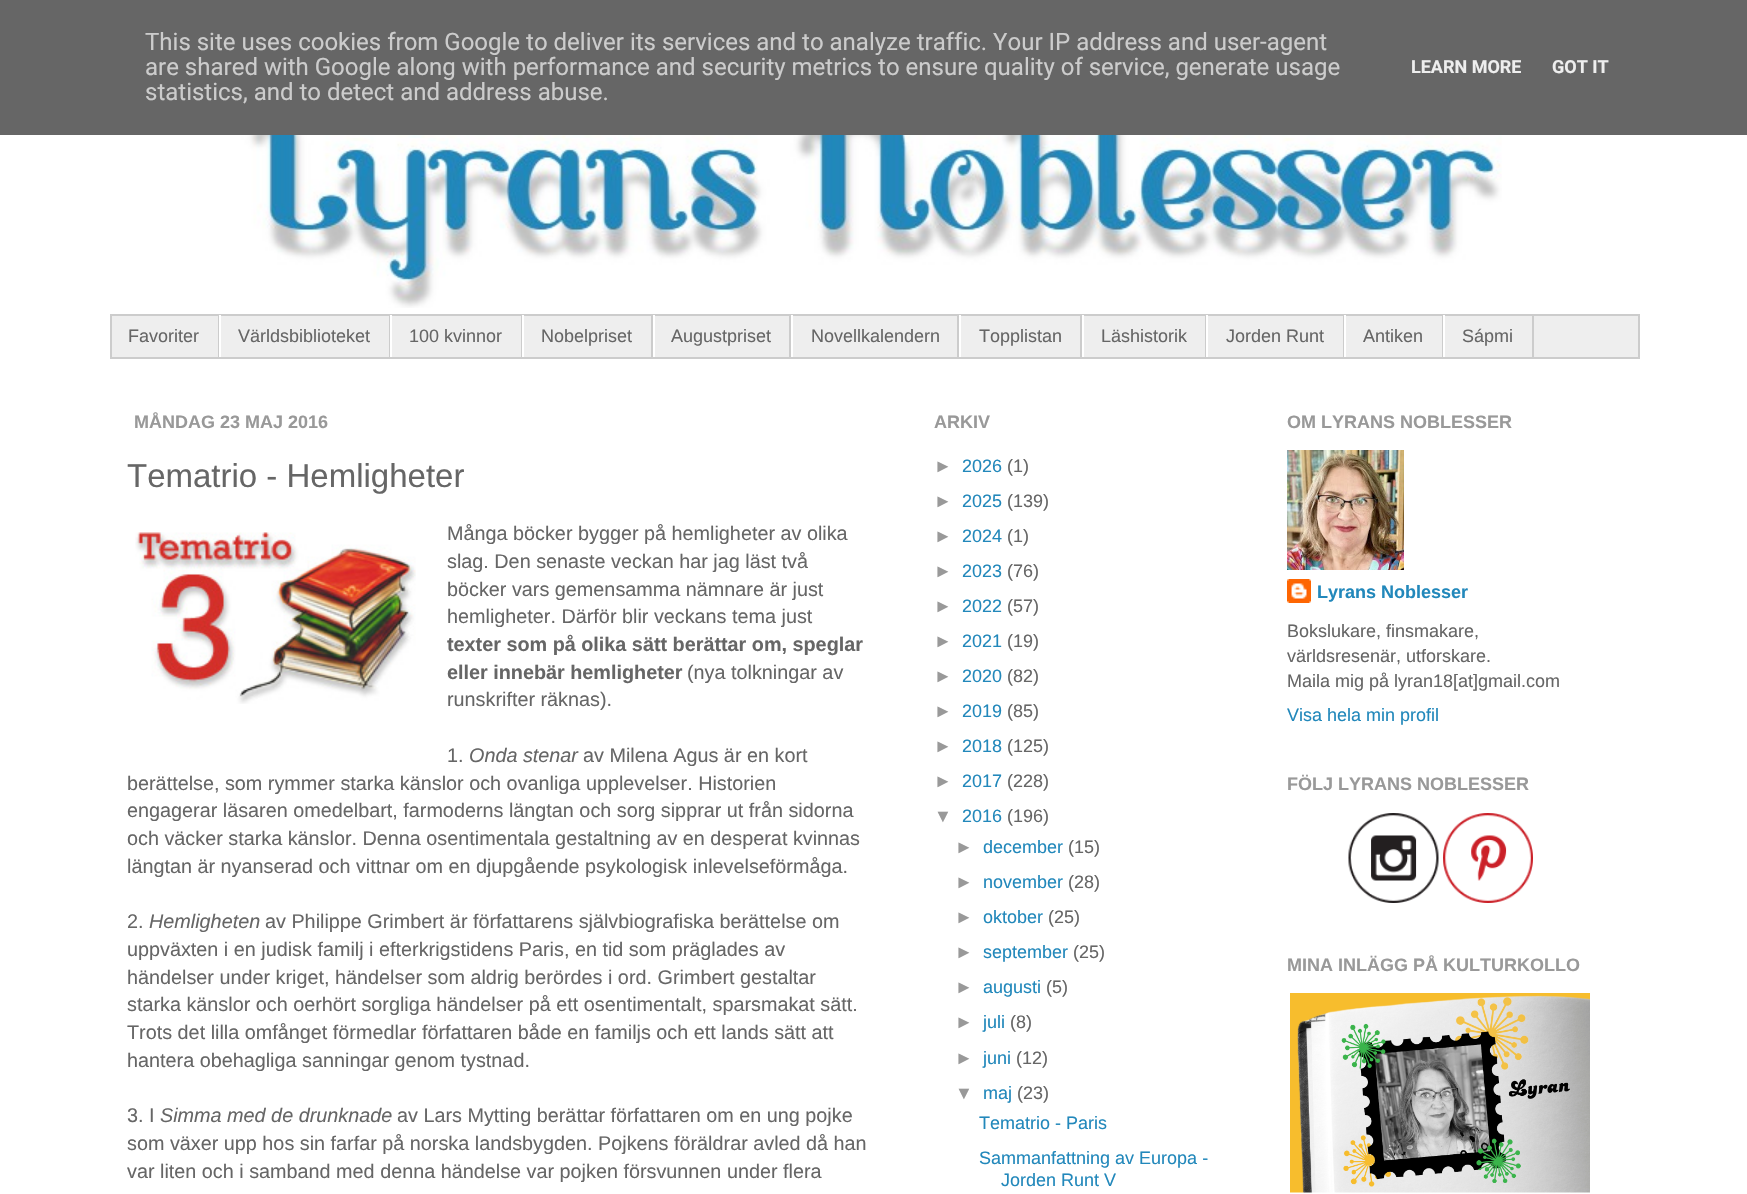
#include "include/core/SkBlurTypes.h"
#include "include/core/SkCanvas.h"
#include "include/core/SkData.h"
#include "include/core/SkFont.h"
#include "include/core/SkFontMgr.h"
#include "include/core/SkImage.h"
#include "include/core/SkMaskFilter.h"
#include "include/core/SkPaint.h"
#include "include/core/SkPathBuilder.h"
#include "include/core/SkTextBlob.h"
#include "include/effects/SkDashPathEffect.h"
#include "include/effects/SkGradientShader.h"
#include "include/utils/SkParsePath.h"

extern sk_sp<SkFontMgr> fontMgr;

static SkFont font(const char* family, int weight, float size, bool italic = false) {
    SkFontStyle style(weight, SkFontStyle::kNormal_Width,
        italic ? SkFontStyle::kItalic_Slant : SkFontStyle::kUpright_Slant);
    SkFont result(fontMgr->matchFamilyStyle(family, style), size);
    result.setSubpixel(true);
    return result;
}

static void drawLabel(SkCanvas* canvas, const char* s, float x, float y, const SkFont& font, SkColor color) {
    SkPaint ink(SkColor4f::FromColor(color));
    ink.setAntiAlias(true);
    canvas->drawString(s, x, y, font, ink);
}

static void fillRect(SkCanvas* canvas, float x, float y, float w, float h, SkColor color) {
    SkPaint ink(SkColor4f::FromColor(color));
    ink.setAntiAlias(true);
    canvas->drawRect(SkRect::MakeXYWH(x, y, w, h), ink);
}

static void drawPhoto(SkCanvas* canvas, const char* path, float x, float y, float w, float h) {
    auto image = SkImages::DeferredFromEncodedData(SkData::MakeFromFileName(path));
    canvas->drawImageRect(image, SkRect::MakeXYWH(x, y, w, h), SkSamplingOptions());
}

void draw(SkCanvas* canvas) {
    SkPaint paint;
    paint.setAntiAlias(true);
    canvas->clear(0xFFFFFFFF);
    fillRect(canvas, 0, 0, 1747, 135, 0xFF666666);
    SkFont font1 = font("Roboto", 400, 24);
    drawLabel(canvas, "This site uses cookies from Google to deliver its services and to analyze traffic. Your IP address and user-agent", 145, 50, font1, 0xFFCCCCCC);
    drawLabel(canvas, "are shared with Google along with performance and security metrics to ensure quality of service, generate usage", 145, 75, font1, 0xFFCCCCCC);
    drawLabel(canvas, "statistics, and to detect and address abuse.", 145, 100, font1, 0xFFCCCCCC);
    SkFont font2 = font("Roboto", 700, 18);
    drawLabel(canvas, "LEARN MORE", 1411, 73, font2, 0xFFEEEEEE);
    drawLabel(canvas, "GOT IT", 1552, 73, font2, 0xFFEEEEEE);
    drawPhoto(canvas, "assets/img1.png", 230, 135, 1272, 173);
    paint.setColor(0xFFEEEEEE);
    canvas->drawRect(SkRect::MakeXYWH(111, 315, 1528, 43), paint);
    paint.setStroke(true);
    paint.setStrokeWidth(2);
    paint.setColor(0xFFCCCCCC);
    canvas->drawRect(SkRect::MakeXYWH(111, 315, 1528, 43), paint);
    fillRect(canvas, 218, 315, 1, 42, 0xFFCCCCCC);
    SkFont font3 = font("Liberation Sans", 400, 18);
    drawLabel(canvas, "Favoriter", 128, 342, font3, 0xFF666666);
    fillRect(canvas, 389, 315, 1, 42, 0xFFCCCCCC);
    fillRect(canvas, 219, 315, 2, 42, 0xFFFFFFFF);
    drawLabel(canvas, "Världsbiblioteket", 238, 342, font3, 0xFF666666);
    fillRect(canvas, 521, 315, 1, 42, 0xFFCCCCCC);
    fillRect(canvas, 390, 315, 2, 42, 0xFFFFFFFF);
    drawLabel(canvas, "100 kvinnor", 409, 342, font3, 0xFF666666);
    fillRect(canvas, 651, 315, 2, 42, 0xFFCCCCCC);
    fillRect(canvas, 522, 315, 2, 42, 0xFFFFFFFF);
    drawLabel(canvas, "Nobelpriset", 541, 342, font3, 0xFF666666);
    fillRect(canvas, 789, 315, 2, 42, 0xFFCCCCCC);
    fillRect(canvas, 653, 315, 2, 42, 0xFFFFFFFF);
    drawLabel(canvas, "Augustpriset", 671, 342, font3, 0xFF666666);
    fillRect(canvas, 957, 315, 2, 42, 0xFFCCCCCC);
    fillRect(canvas, 791, 315, 2, 42, 0xFFFFFFFF);
    drawLabel(canvas, "Novellkalendern", 811, 342, font3, 0xFF666666);
    fillRect(canvas, 1080, 315, 2, 42, 0xFFCCCCCC);
    fillRect(canvas, 959, 315, 2, 42, 0xFFFFFFFF);
    drawLabel(canvas, "Topplistan", 979, 342, font3, 0xFF666666);
    fillRect(canvas, 1205, 315, 1, 42, 0xFFCCCCCC);
    fillRect(canvas, 1082, 315, 2, 42, 0xFFFFFFFF);
    drawLabel(canvas, "Läshistorik", 1101, 342, font3, 0xFF666666);
    fillRect(canvas, 1343, 315, 1, 42, 0xFFCCCCCC);
    fillRect(canvas, 1206, 315, 2, 42, 0xFFFFFFFF);
    drawLabel(canvas, "Jorden Runt", 1226, 342, font3, 0xFF666666);
    fillRect(canvas, 1442, 315, 1, 42, 0xFFCCCCCC);
    fillRect(canvas, 1344, 315, 2, 42, 0xFFFFFFFF);
    drawLabel(canvas, "Antiken", 1363, 342, font3, 0xFF666666);
    fillRect(canvas, 1532, 315, 2, 42, 0xFFCCCCCC);
    fillRect(canvas, 1443, 315, 2, 42, 0xFFFFFFFF);
    drawLabel(canvas, "Sápmi", 1462, 342, font3, 0xFF666666);
    SkFont font4 = font("Liberation Sans", 700, 18);
    drawLabel(canvas, "MÅNDAG 23 MAJ 2016", 134, 428, font4, 0xFF999999);
    SkFont font5 = font("Liberation Sans", 400, 33);
    drawLabel(canvas, "Tematrio - Hemligheter", 127, 487, font5, 0xFF666666);
    drawPhoto(canvas, "assets/img2.png", 135, 532, 281, 172);
    SkFont font6 = font("Liberation Sans", 400, 19.8f);
    drawLabel(canvas, "Många böcker bygger på hemligheter av olika", 447, 540, font6, 0xFF666666);
    drawLabel(canvas, "slag. Den senaste veckan har jag läst två", 447, 568, font6, 0xFF666666);
    drawLabel(canvas, "böcker vars gemensamma nämnare är just", 447, 596, font6, 0xFF666666);
    drawLabel(canvas, "hemligheter. Därför blir veckans tema just", 447, 623, font6, 0xFF666666);
    SkFont font7 = font("Liberation Sans", 700, 19.8f);
    drawLabel(canvas, "texter som på olika sätt berättar om, speglar", 447, 651, font7, 0xFF666666);
    drawLabel(canvas, "eller innebär hemligheter", 447, 679, font7, 0xFF666666);
    drawLabel(canvas, "(nya tolkningar av", 687, 679, font6, 0xFF666666);
    drawLabel(canvas, "runskrifter räknas).", 447, 706, font6, 0xFF666666);
    drawLabel(canvas, "1.", 447, 762, font6, 0xFF666666);
    SkFont font8 = font("Liberation Sans", 400, 19.8f, true);
    drawLabel(canvas, "Onda stenar", 469, 762, font8, 0xFF666666);
    drawLabel(canvas, "av Milena Agus är en kort", 583, 762, font6, 0xFF666666);
    drawLabel(canvas, "berättelse, som rymmer starka känslor och ovanliga upplevelser. Historien", 127, 790, font6, 0xFF666666);
    drawLabel(canvas, "engagerar läsaren omedelbart, farmoderns längtan och sorg sipprar ut från sidorna", 127, 817, font6, 0xFF666666);
    drawLabel(canvas, "och väcker starka känslor. Denna osentimentala gestaltning av en desperat kvinnas", 127, 845, font6, 0xFF666666);
    drawLabel(canvas, "längtan är nyanserad och vittnar om en djupgående psykologisk inlevelseförmåga.", 127, 873, font6, 0xFF666666);
    drawLabel(canvas, "2.", 127, 928, font6, 0xFF666666);
    drawLabel(canvas, "Hemligheten", 149, 928, font8, 0xFF666666);
    drawLabel(canvas, "av Philippe Grimbert är författarens självbiografiska berättelse om", 265, 928, font6, 0xFF666666);
    drawLabel(canvas, "uppväxten i en judisk familj i efterkrigstidens Paris, en tid som präglades av", 127, 956, font6, 0xFF666666);
    drawLabel(canvas, "händelser under kriget, händelser som aldrig berördes i ord. Grimbert gestaltar", 127, 984, font6, 0xFF666666);
    drawLabel(canvas, "starka känslor och oerhört sorgliga händelser på ett osentimentalt, sparsmakat sätt.", 127, 1011, font6, 0xFF666666);
    drawLabel(canvas, "Trots det lilla omfånget förmedlar författaren både en familjs och ett lands sätt att", 127, 1039, font6, 0xFF666666);
    drawLabel(canvas, "hantera obehagliga sanningar genom tystnad.", 127, 1067, font6, 0xFF666666);
    drawLabel(canvas, "3. I", 127, 1122, font6, 0xFF666666);
    drawLabel(canvas, "Simma med de drunknade", 160, 1122, font8, 0xFF666666);
    drawLabel(canvas, "av Lars Mytting berättar författaren om en ung pojke", 397, 1122, font6, 0xFF666666);
    drawLabel(canvas, "som växer upp hos sin farfar på norska landsbygden. Pojkens föräldrar avled då han", 127, 1150, font6, 0xFF666666);
    drawLabel(canvas, "var liten och i samband med denna händelse var pojken försvunnen under flera", 127, 1178, font6, 0xFF666666);
    drawLabel(canvas, "ARKIV", 934, 428, font4, 0xFF999999);
    drawLabel(canvas, "►", 934, 472, font3, 0xFF999999);
    drawLabel(canvas, "2026", 962, 472, font3, 0xFF2288BB);
    drawLabel(canvas, "(1)", 1007, 472, font3, 0xFF666666);
    drawLabel(canvas, "►", 934, 507, font3, 0xFF999999);
    drawLabel(canvas, "2025", 962, 507, font3, 0xFF2288BB);
    drawLabel(canvas, "(139)", 1007, 507, font3, 0xFF666666);
    drawLabel(canvas, "►", 934, 542, font3, 0xFF999999);
    drawLabel(canvas, "2024", 962, 542, font3, 0xFF2288BB);
    drawLabel(canvas, "(1)", 1007, 542, font3, 0xFF666666);
    drawLabel(canvas, "►", 934, 577, font3, 0xFF999999);
    drawLabel(canvas, "2023", 962, 577, font3, 0xFF2288BB);
    drawLabel(canvas, "(76)", 1007, 577, font3, 0xFF666666);
    drawLabel(canvas, "►", 934, 612, font3, 0xFF999999);
    drawLabel(canvas, "2022", 962, 612, font3, 0xFF2288BB);
    drawLabel(canvas, "(57)", 1007, 612, font3, 0xFF666666);
    drawLabel(canvas, "►", 934, 647, font3, 0xFF999999);
    drawLabel(canvas, "2021", 962, 647, font3, 0xFF2288BB);
    drawLabel(canvas, "(19)", 1007, 647, font3, 0xFF666666);
    drawLabel(canvas, "►", 934, 682, font3, 0xFF999999);
    drawLabel(canvas, "2020", 962, 682, font3, 0xFF2288BB);
    drawLabel(canvas, "(82)", 1007, 682, font3, 0xFF666666);
    drawLabel(canvas, "►", 934, 717, font3, 0xFF999999);
    drawLabel(canvas, "2019", 962, 717, font3, 0xFF2288BB);
    drawLabel(canvas, "(85)", 1007, 717, font3, 0xFF666666);
    drawLabel(canvas, "►", 934, 752, font3, 0xFF999999);
    drawLabel(canvas, "2018", 962, 752, font3, 0xFF2288BB);
    drawLabel(canvas, "(125)", 1007, 752, font3, 0xFF666666);
    drawLabel(canvas, "►", 934, 787, font3, 0xFF999999);
    drawLabel(canvas, "2017", 962, 787, font3, 0xFF2288BB);
    drawLabel(canvas, "(228)", 1007, 787, font3, 0xFF666666);
    drawLabel(canvas, "▼", 934, 822, font3, 0xFF999999);
    drawLabel(canvas, "2016", 962, 822, font3, 0xFF2288BB);
    drawLabel(canvas, "(196)", 1007, 822, font3, 0xFF666666);
    drawLabel(canvas, "►", 955, 853, font3, 0xFF999999);
    drawLabel(canvas, "december", 983, 853, font3, 0xFF2288BB);
    drawLabel(canvas, "(15)", 1068, 853, font3, 0xFF666666);
    drawLabel(canvas, "►", 955, 888, font3, 0xFF999999);
    drawLabel(canvas, "november", 983, 888, font3, 0xFF2288BB);
    drawLabel(canvas, "(28)", 1068, 888, font3, 0xFF666666);
    drawLabel(canvas, "►", 955, 923, font3, 0xFF999999);
    drawLabel(canvas, "oktober", 983, 923, font3, 0xFF2288BB);
    drawLabel(canvas, "(25)", 1048, 923, font3, 0xFF666666);
    drawLabel(canvas, "►", 955, 958, font3, 0xFF999999);
    drawLabel(canvas, "september", 983, 958, font3, 0xFF2288BB);
    drawLabel(canvas, "(25)", 1073, 958, font3, 0xFF666666);
    drawLabel(canvas, "►", 955, 993, font3, 0xFF999999);
    drawLabel(canvas, "augusti", 983, 993, font3, 0xFF2288BB);
    drawLabel(canvas, "(5)", 1046, 993, font3, 0xFF666666);
    drawLabel(canvas, "►", 955, 1028, font3, 0xFF999999);
    drawLabel(canvas, "juli", 983, 1028, font3, 0xFF2288BB);
    drawLabel(canvas, "(8)", 1010, 1028, font3, 0xFF666666);
    drawLabel(canvas, "►", 955, 1064, font3, 0xFF999999);
    drawLabel(canvas, "juni", 983, 1064, font3, 0xFF2288BB);
    drawLabel(canvas, "(12)", 1016, 1064, font3, 0xFF666666);
    drawLabel(canvas, "▼", 955, 1099, font3, 0xFF999999);
    drawLabel(canvas, "maj", 983, 1099, font3, 0xFF2288BB);
    drawLabel(canvas, "(23)", 1017, 1099, font3, 0xFF666666);
    drawLabel(canvas, "Tematrio - Paris", 979, 1129, font3, 0xFF2288BB);
    drawLabel(canvas, "Sammanfattning av Europa -", 979, 1164, font3, 0xFF2288BB);
    drawLabel(canvas, "Jorden Runt V", 1001, 1186, font3, 0xFF2288BB);
    drawLabel(canvas, "OM LYRANS NOBLESSER", 1287, 428, font4, 0xFF999999);
    drawPhoto(canvas, "assets/img3.png", 1287, 450, 117, 120);
    drawPhoto(canvas, "assets/img4.png", 1287, 579, 24, 24);
    drawLabel(canvas, "Lyrans Noblesser", 1317, 598, font4, 0xFF2288BB);
    drawLabel(canvas, "Bokslukare, finsmakare,", 1287, 637, font3, 0xFF666666);
    drawLabel(canvas, "världsresenär, utforskare.", 1287, 662, font3, 0xFF666666);
    drawLabel(canvas, "Maila mig på lyran18[at]gmail.com", 1287, 687, font3, 0xFF666666);
    drawLabel(canvas, "Visa hela min profil", 1287, 721, font3, 0xFF2288BB);
    drawLabel(canvas, "FÖLJ LYRANS NOBLESSER", 1287, 790, font4, 0xFF999999);
    drawPhoto(canvas, "assets/img5.png", 1348, 813, 91, 90);
    drawPhoto(canvas, "assets/img6.png", 1443, 813, 90, 90);
    drawLabel(canvas, "MINA INLÄGG PÅ KULTURKOLLO", 1287, 971, font4, 0xFF999999);
    drawPhoto(canvas, "assets/img7.png", 1290, 993, 300, 200);
}
